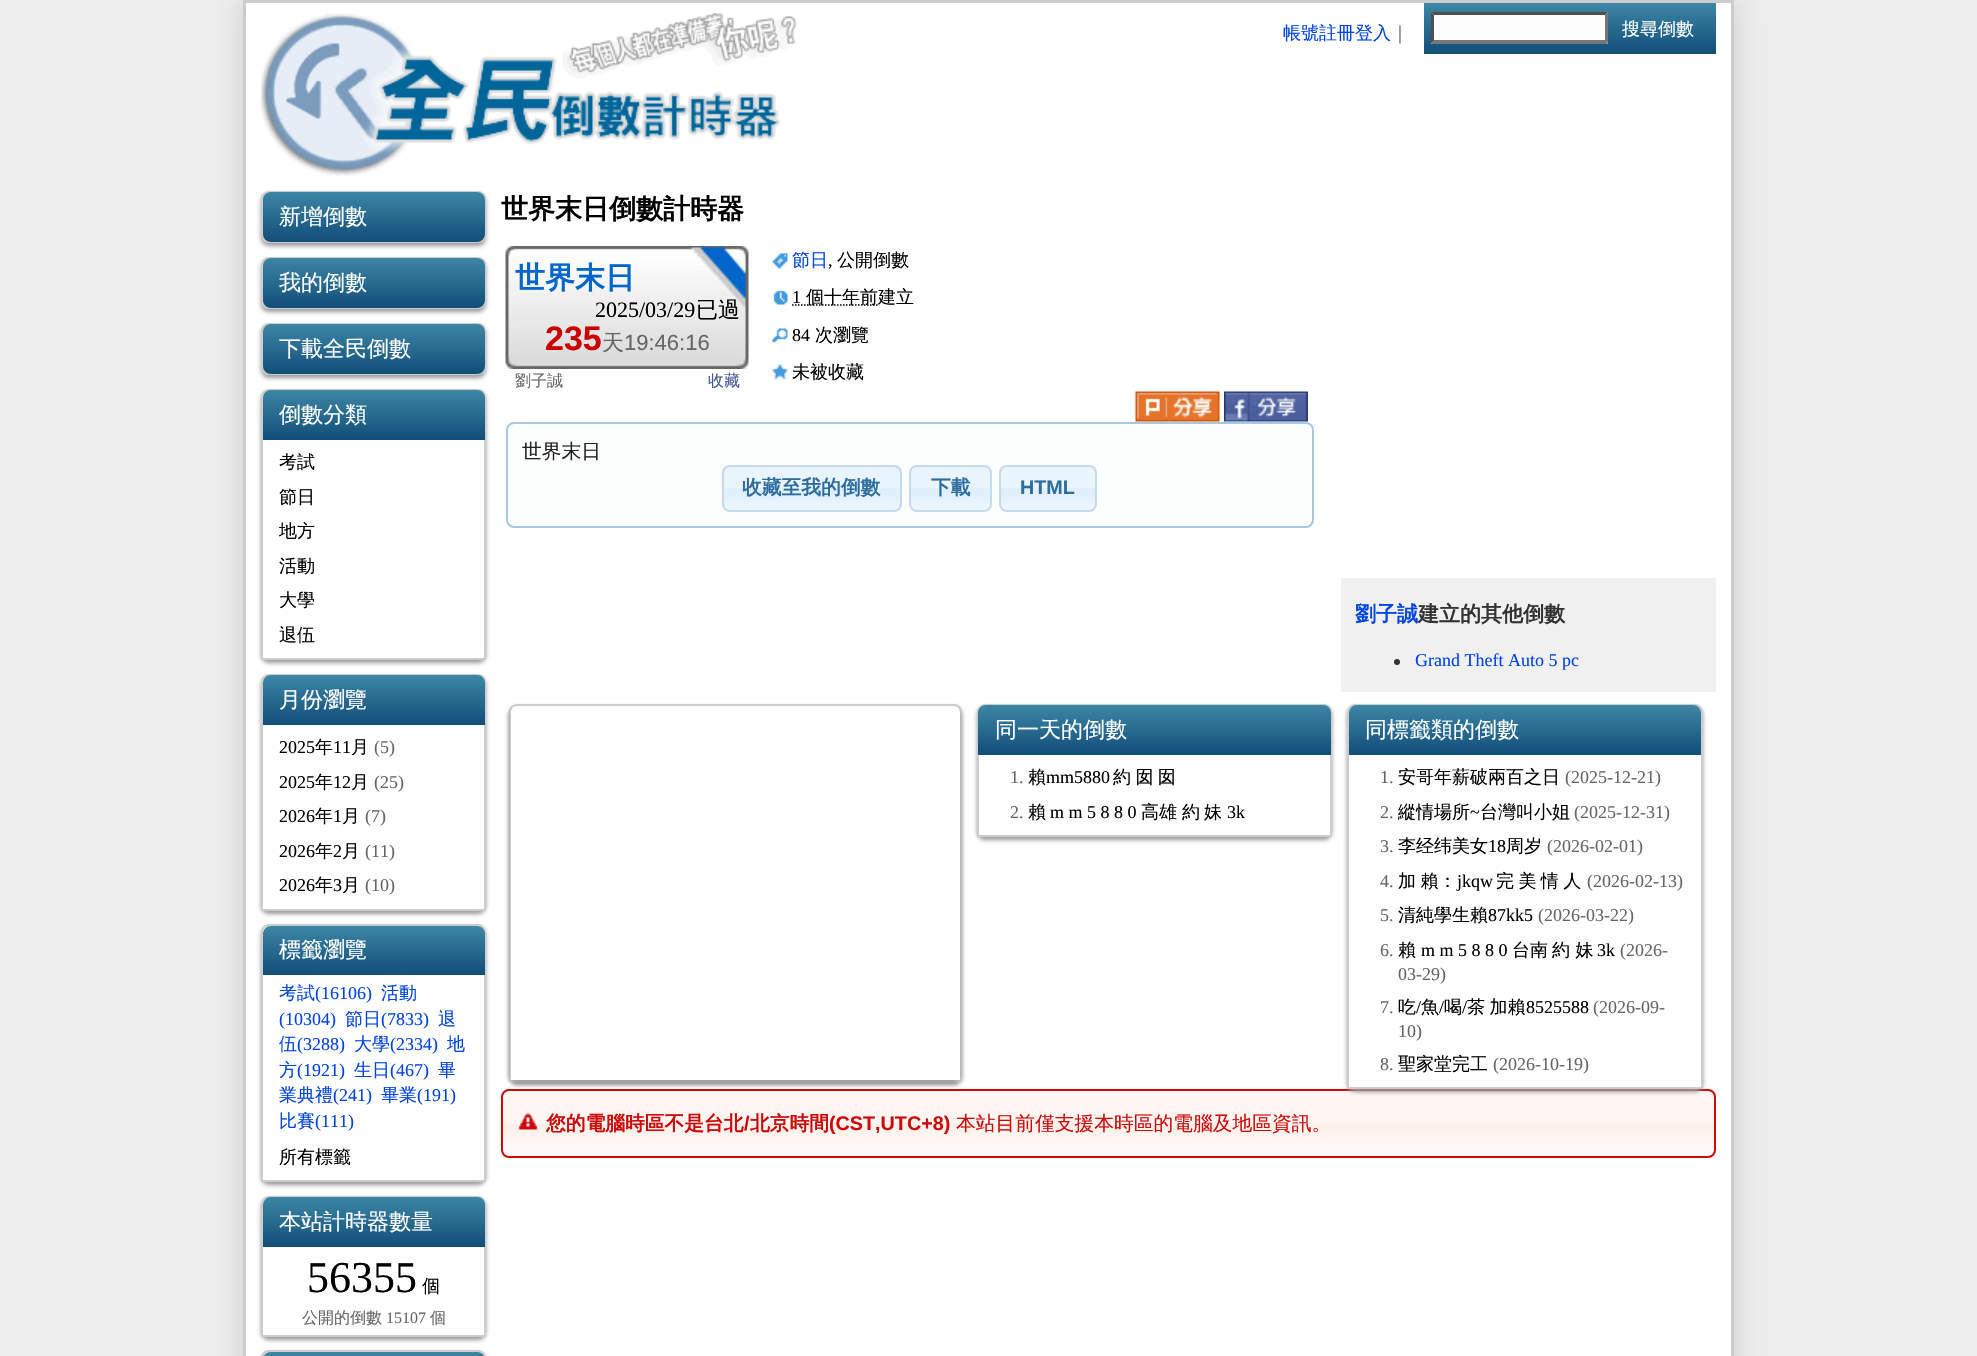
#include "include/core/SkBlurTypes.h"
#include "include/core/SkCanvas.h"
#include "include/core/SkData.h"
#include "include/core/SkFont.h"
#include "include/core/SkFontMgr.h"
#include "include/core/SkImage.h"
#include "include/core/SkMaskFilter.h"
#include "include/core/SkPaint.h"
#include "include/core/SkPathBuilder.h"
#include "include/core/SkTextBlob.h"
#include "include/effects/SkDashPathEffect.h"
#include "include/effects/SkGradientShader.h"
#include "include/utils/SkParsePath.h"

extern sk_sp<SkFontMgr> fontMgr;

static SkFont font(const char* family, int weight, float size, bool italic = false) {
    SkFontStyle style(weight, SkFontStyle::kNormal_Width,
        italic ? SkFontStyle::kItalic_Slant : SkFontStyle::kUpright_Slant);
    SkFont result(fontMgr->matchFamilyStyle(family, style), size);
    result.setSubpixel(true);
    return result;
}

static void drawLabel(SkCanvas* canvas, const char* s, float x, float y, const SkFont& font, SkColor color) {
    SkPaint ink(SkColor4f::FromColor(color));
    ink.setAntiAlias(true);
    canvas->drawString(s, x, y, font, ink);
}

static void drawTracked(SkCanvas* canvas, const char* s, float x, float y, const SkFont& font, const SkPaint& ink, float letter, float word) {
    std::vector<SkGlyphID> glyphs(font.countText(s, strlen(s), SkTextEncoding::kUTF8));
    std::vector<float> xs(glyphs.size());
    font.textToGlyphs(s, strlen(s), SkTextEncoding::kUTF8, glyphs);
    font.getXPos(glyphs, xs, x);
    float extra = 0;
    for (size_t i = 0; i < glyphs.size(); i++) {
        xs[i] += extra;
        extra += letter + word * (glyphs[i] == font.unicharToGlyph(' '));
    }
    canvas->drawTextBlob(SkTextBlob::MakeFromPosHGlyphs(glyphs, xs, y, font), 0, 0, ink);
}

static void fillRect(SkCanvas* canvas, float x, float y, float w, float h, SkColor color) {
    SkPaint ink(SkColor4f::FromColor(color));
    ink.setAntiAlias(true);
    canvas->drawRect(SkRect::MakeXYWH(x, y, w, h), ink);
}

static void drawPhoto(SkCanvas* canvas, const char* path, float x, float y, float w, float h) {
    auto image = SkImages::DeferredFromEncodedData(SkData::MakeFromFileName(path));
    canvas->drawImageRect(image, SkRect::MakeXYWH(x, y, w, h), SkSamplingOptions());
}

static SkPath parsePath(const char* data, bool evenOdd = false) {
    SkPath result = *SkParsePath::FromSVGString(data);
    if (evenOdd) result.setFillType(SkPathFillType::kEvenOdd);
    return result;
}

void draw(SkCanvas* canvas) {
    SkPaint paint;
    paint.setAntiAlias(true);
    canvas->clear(0xFFEEEEEE);
    paint.setColor(0xFFCCCCCC);
    paint.setMaskFilter(SkMaskFilter::MakeBlur(kNormal_SkBlurStyle, 15));
    canvas->drawRect(SkRect::MakeXYWH(243, 0, 1491, 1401), paint);
    paint.setMaskFilter(nullptr);
    paint.setColor(0xFFFFFFFF);
    canvas->drawRect(SkRect::MakeXYWH(244.5f, 1.5f, 1488, 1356), paint);
    paint.setStroke(true);
    paint.setStrokeWidth(3);
    paint.setColor(0xFFCCCCCC);
    canvas->drawRect(SkRect::MakeXYWH(244.5f, 1.5f, 1488, 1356), paint);
    drawPhoto(canvas, "assets/img1.png", 261, 13, 536, 163);
    SkFont font1 = font("WenQuanYi Zen Hei", 500, 18);
    drawLabel(canvas, "帳號註冊登入", 1283, 39, font1, 0xFF0044E4);
    drawLabel(canvas, "｜", 1391, 39, font1, 0xFF666666);
    paint.setStroke(false);
    {
        const SkColor colors[] = {0xFF3D86A5, 0xFF114E79};
        const float stops[] = {0, 1};
        const SkPoint ends[] = {{1570, 3}, {1570, 54}};
        paint.setShader(SkGradientShader::MakeLinear(ends, colors, stops, 2, SkTileMode::kClamp));
        paint.setAlpha(255);
    }
    canvas->drawRect(SkRect::MakeXYWH(1424, 3, 292, 51), paint);
    fillRect(canvas, 1431, 12, 177, 32, 0xFFFCFCFC);
    paint.setShader(nullptr);
    paint.setColor(0xFF4F4F4F);
    canvas->drawPath(parsePath("M1431 12H1608L1605 15H1434Z"), paint);
    paint.setColor(0xFF767676);
    canvas->drawPath(parsePath("M1608 12V43.5L1605 40.5V15Z"), paint);
    canvas->drawPath(parsePath("M1608 44H1431L1434 40H1605Z"), paint);
    paint.setColor(0xFF4F4F4F);
    canvas->drawPath(parsePath("M1431 43.5V12L1434 15V40.5Z"), paint);
    drawLabel(canvas, "搜尋倒數", 1622, 35, font1, 0xFFFFFFFF);
    paint.setColor(0xFF999999);
    paint.setMaskFilter(SkMaskFilter::MakeBlur(kNormal_SkBlurStyle, 2));
    canvas->drawRoundRect(SkRect::MakeXYWH(261, 194, 225, 52), 8, 8, paint);
    paint.setMaskFilter(nullptr);
    paint.setStroke(true);
    paint.setStrokeWidth(2);
    paint.setColor(0xFFCCCCCC);
    canvas->drawRoundRect(SkRect::MakeXYWH(262, 192, 223, 50), 7, 7, paint);
    paint.setStroke(false);
    {
        const SkColor colors[] = {0xFF3D86A5, 0xFF114E79};
        const float stops[] = {0, 1};
        const SkPoint ends[] = {{374, 192}, {374, 242}};
        paint.setShader(SkGradientShader::MakeLinear(ends, colors, stops, 2, SkTileMode::kClamp));
        paint.setAlpha(255);
    }
    canvas->drawRoundRect(SkRect::MakeXYWH(263, 192, 222, 50), 8, 8, paint);
    SkFont font2 = font("WenQuanYi Zen Hei", 500, 22);
    drawLabel(canvas, "新增倒數", 279, 224, font2, 0xFFFFFFFF);
    paint.setShader(nullptr);
    paint.setColor(0xFF999999);
    paint.setMaskFilter(SkMaskFilter::MakeBlur(kNormal_SkBlurStyle, 2));
    canvas->drawRoundRect(SkRect::MakeXYWH(261, 260, 225, 52), 8, 8, paint);
    paint.setMaskFilter(nullptr);
    paint.setStroke(true);
    paint.setColor(0xFFCCCCCC);
    canvas->drawRoundRect(SkRect::MakeXYWH(262, 258, 223, 50), 7, 7, paint);
    paint.setStroke(false);
    {
        const SkColor colors[] = {0xFF3D86A5, 0xFF114E79};
        const float stops[] = {0, 1};
        const SkPoint ends[] = {{374, 258}, {374, 308}};
        paint.setShader(SkGradientShader::MakeLinear(ends, colors, stops, 2, SkTileMode::kClamp));
        paint.setAlpha(255);
    }
    canvas->drawRoundRect(SkRect::MakeXYWH(263, 258, 222, 50), 8, 8, paint);
    drawLabel(canvas, "我的倒數", 279, 290, font2, 0xFFFFFFFF);
    paint.setShader(nullptr);
    paint.setColor(0xFF999999);
    paint.setMaskFilter(SkMaskFilter::MakeBlur(kNormal_SkBlurStyle, 2));
    canvas->drawRoundRect(SkRect::MakeXYWH(261, 326, 225, 52), 8, 8, paint);
    paint.setMaskFilter(nullptr);
    paint.setStroke(true);
    paint.setColor(0xFFCCCCCC);
    canvas->drawRoundRect(SkRect::MakeXYWH(262, 324, 223, 50), 7, 7, paint);
    paint.setStroke(false);
    {
        const SkColor colors[] = {0xFF3D86A5, 0xFF114E79};
        const float stops[] = {0, 1};
        const SkPoint ends[] = {{374, 324}, {374, 374}};
        paint.setShader(SkGradientShader::MakeLinear(ends, colors, stops, 2, SkTileMode::kClamp));
        paint.setAlpha(255);
    }
    canvas->drawRoundRect(SkRect::MakeXYWH(263, 324, 222, 50), 8, 8, paint);
    drawLabel(canvas, "下載全民倒數", 279, 356, font2, 0xFFFFFFFF);
    canvas->save();
    canvas->clipPath(parsePath("M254 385H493V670H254ZM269 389H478C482.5 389 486 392.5 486 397V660H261V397C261 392.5 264.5 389 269 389Z", true), true);
    paint.setShader(nullptr);
    paint.setColor(0xFF999999);
    paint.setMaskFilter(SkMaskFilter::MakeBlur(kNormal_SkBlurStyle, 2));
    canvas->drawRoundRect(SkRect::MakeXYWH(261, 392, 225, 271), 8, 8, paint);
    paint.setMaskFilter(nullptr);
    canvas->restore();
    paint.setStroke(true);
    paint.setColor(0xFFCCCCCC);
    canvas->drawPath(parsePath("M269 390H478C482 390 485 393 485 397V659H262V397C262 393 265 390 269 390Z"), paint);
    paint.setStroke(false);
    {
        const SkColor colors[] = {0xFF3D86A5, 0xFF114E79};
        const float stops[] = {0, 1};
        const SkPoint ends[] = {{374, 390}, {374, 440}};
        paint.setShader(SkGradientShader::MakeLinear(ends, colors, stops, 2, SkTileMode::kClamp));
        paint.setAlpha(255);
    }
    canvas->drawPath(parsePath("M271 390H477C481.5 390 485 393.5 485 398V440H263V398C263 393.5 266.5 390 271 390Z"), paint);
    drawLabel(canvas, "倒數分類", 279, 422, font2, 0xFFFFFFFF);
    drawLabel(canvas, "考試", 279, 468, font1, 0xFF000000);
    drawLabel(canvas, "節日", 279, 503, font1, 0xFF000000);
    drawLabel(canvas, "地方", 279, 537, font1, 0xFF000000);
    drawLabel(canvas, "活動", 279, 572, font1, 0xFF000000);
    drawLabel(canvas, "大學", 279, 606, font1, 0xFF000000);
    drawLabel(canvas, "退伍", 279, 641, font1, 0xFF000000);
    canvas->save();
    canvas->clipPath(parsePath("M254 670H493V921H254ZM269 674H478C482.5 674 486 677.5 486 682V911H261V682C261 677.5 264.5 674 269 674Z", true), true);
    paint.setShader(nullptr);
    paint.setColor(0xFF999999);
    paint.setMaskFilter(SkMaskFilter::MakeBlur(kNormal_SkBlurStyle, 2));
    canvas->drawRoundRect(SkRect::MakeXYWH(261, 677, 225, 237), 8, 8, paint);
    paint.setMaskFilter(nullptr);
    canvas->restore();
    paint.setStroke(true);
    paint.setColor(0xFFCCCCCC);
    canvas->drawPath(parsePath("M269 675H478C482 675 485 678 485 682V910H262V682C262 678 265 675 269 675Z"), paint);
    paint.setStroke(false);
    {
        const SkColor colors[] = {0xFF3D86A5, 0xFF114E79};
        const float stops[] = {0, 1};
        const SkPoint ends[] = {{374, 675}, {374, 725}};
        paint.setShader(SkGradientShader::MakeLinear(ends, colors, stops, 2, SkTileMode::kClamp));
        paint.setAlpha(255);
    }
    canvas->drawPath(parsePath("M271 675H477C481.5 675 485 678.5 485 683V725H263V683C263 678.5 266.5 675 271 675Z"), paint);
    drawLabel(canvas, "月份瀏覽", 279, 707, font2, 0xFFFFFFFF);
    SkFont font3 = font("Liberation Serif", 400, 18);
    drawLabel(canvas, "2025", 279, 753, font3, 0xFF000000);
    drawLabel(canvas, "年", 315, 753, font1, 0xFF000000);
    drawLabel(canvas, "11", 333, 753, font3, 0xFF000000);
    drawLabel(canvas, "月", 351, 753, font1, 0xFF000000);
    drawLabel(canvas, "(5)", 374, 753, font3, 0xFF666666);
    drawLabel(canvas, "2025", 279, 788, font3, 0xFF000000);
    drawLabel(canvas, "年", 315, 788, font1, 0xFF000000);
    drawLabel(canvas, "12", 333, 788, font3, 0xFF000000);
    drawLabel(canvas, "月", 351, 788, font1, 0xFF000000);
    drawLabel(canvas, "(25)", 374, 788, font3, 0xFF666666);
    drawLabel(canvas, "2026", 279, 822, font3, 0xFF000000);
    drawLabel(canvas, "年", 315, 822, font1, 0xFF000000);
    drawLabel(canvas, "1", 333, 822, font3, 0xFF000000);
    drawLabel(canvas, "月", 342, 822, font1, 0xFF000000);
    drawLabel(canvas, "(7)", 365, 822, font3, 0xFF666666);
    drawLabel(canvas, "2026", 279, 857, font3, 0xFF000000);
    drawLabel(canvas, "年", 315, 857, font1, 0xFF000000);
    drawLabel(canvas, "2", 333, 857, font3, 0xFF000000);
    drawLabel(canvas, "月", 342, 857, font1, 0xFF000000);
    drawLabel(canvas, "(11)", 365, 857, font3, 0xFF666666);
    drawLabel(canvas, "2026", 279, 891, font3, 0xFF000000);
    drawLabel(canvas, "年", 315, 891, font1, 0xFF000000);
    drawLabel(canvas, "3", 333, 891, font3, 0xFF000000);
    drawLabel(canvas, "月", 342, 891, font1, 0xFF000000);
    drawLabel(canvas, "(10)", 365, 891, font3, 0xFF666666);
    canvas->save();
    canvas->clipPath(parsePath("M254 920H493V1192H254ZM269 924H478C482.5 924 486 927.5 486 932V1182H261V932C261 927.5 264.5 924 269 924Z", true), true);
    paint.setShader(nullptr);
    paint.setColor(0xFF999999);
    paint.setMaskFilter(SkMaskFilter::MakeBlur(kNormal_SkBlurStyle, 2));
    canvas->drawRoundRect(SkRect::MakeXYWH(261, 927, 225, 258), 8, 8, paint);
    paint.setMaskFilter(nullptr);
    canvas->restore();
    paint.setStroke(true);
    paint.setColor(0xFFCCCCCC);
    canvas->drawPath(parsePath("M269 925H478C482 925 485 928 485 932V1181H262V932C262 928 265 925 269 925Z"), paint);
    paint.setStroke(false);
    {
        const SkColor colors[] = {0xFF3D86A5, 0xFF114E79};
        const float stops[] = {0, 1};
        const SkPoint ends[] = {{374, 926}, {374, 975}};
        paint.setShader(SkGradientShader::MakeLinear(ends, colors, stops, 2, SkTileMode::kClamp));
        paint.setAlpha(255);
    }
    canvas->drawPath(parsePath("M271 926H477C481.5 926 485 929.5 485 934V975H263V934C263 929.5 266.5 926 271 926Z"), paint);
    drawLabel(canvas, "標籤瀏覽", 279, 957, font2, 0xFFFFFFFF);
    drawLabel(canvas, "考試", 279, 999, font1, 0xFF0044E4);
    drawLabel(canvas, "(16106)", 315, 999, font3, 0xFF0044E4);
    drawLabel(canvas, "活動", 381, 999, font1, 0xFF0044E4);
    drawLabel(canvas, "(10304)", 279, 1025, font3, 0xFF0044E4);
    drawLabel(canvas, "節日", 345, 1025, font1, 0xFF0044E4);
    drawLabel(canvas, "(7833)", 381, 1025, font3, 0xFF0044E4);
    drawLabel(canvas, "退", 438, 1025, font1, 0xFF0044E4);
    drawLabel(canvas, "伍", 279, 1050, font1, 0xFF0044E4);
    drawLabel(canvas, "(3288)", 297, 1050, font3, 0xFF0044E4);
    drawLabel(canvas, "大學", 354, 1050, font1, 0xFF0044E4);
    drawLabel(canvas, "(2334)", 390, 1050, font3, 0xFF0044E4);
    drawLabel(canvas, "地", 447, 1050, font1, 0xFF0044E4);
    drawLabel(canvas, "方", 279, 1076, font1, 0xFF0044E4);
    drawLabel(canvas, "(1921)", 297, 1076, font3, 0xFF0044E4);
    drawLabel(canvas, "生日", 354, 1076, font1, 0xFF0044E4);
    drawLabel(canvas, "(467)", 390, 1076, font3, 0xFF0044E4);
    drawLabel(canvas, "畢", 438, 1076, font1, 0xFF0044E4);
    drawLabel(canvas, "業典禮", 279, 1101, font1, 0xFF0044E4);
    drawLabel(canvas, "(241)", 333, 1101, font3, 0xFF0044E4);
    drawLabel(canvas, "畢業", 381, 1101, font1, 0xFF0044E4);
    drawLabel(canvas, "(191)", 417, 1101, font3, 0xFF0044E4);
    drawLabel(canvas, "比賽", 279, 1127, font1, 0xFF0044E4);
    drawLabel(canvas, "(111)", 315, 1127, font3, 0xFF0044E4);
    drawLabel(canvas, "所有標籤", 279, 1163, font1, 0xFF000000);
    canvas->save();
    canvas->clipPath(parsePath("M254 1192H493V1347H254ZM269 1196H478C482.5 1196 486 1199.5 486 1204V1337H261V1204C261 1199.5 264.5 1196 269 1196Z", true), true);
    paint.setShader(nullptr);
    paint.setColor(0xFF999999);
    paint.setMaskFilter(SkMaskFilter::MakeBlur(kNormal_SkBlurStyle, 2));
    canvas->drawRoundRect(SkRect::MakeXYWH(261, 1199, 225, 141), 8, 8, paint);
    paint.setMaskFilter(nullptr);
    canvas->restore();
    paint.setStroke(true);
    paint.setColor(0xFFCCCCCC);
    canvas->drawPath(parsePath("M269 1197H478C482 1197 485 1200 485 1204V1336H262V1204C262 1200 265 1197 269 1197Z"), paint);
    paint.setStroke(false);
    {
        const SkColor colors[] = {0xFF3D86A5, 0xFF114E79};
        const float stops[] = {0, 1};
        const SkPoint ends[] = {{374, 1197}, {374, 1247}};
        paint.setShader(SkGradientShader::MakeLinear(ends, colors, stops, 2, SkTileMode::kClamp));
        paint.setAlpha(255);
    }
    canvas->drawPath(parsePath("M271 1197H477C481.5 1197 485 1200.5 485 1205V1247H263V1205C263 1200.5 266.5 1197 271 1197Z"), paint);
    drawLabel(canvas, "本站計時器數量", 279, 1229, font2, 0xFFFFFFFF);
    SkFont font4 = font("Liberation Serif", 400, 44);
    drawLabel(canvas, "56355", 307, 1292, font4, 0xFF000000);
    drawLabel(canvas, "個", 422, 1292, font1, 0xFF000000);
    SkFont font5 = font("WenQuanYi Zen Hei", 500, 16);
    drawLabel(canvas, "公開的倒數", 302, 1323, font5, 0xFF666666);
    SkFont font6 = font("Liberation Serif", 400, 16);
    drawLabel(canvas, "15107", 386, 1323, font6, 0xFF666666);
    drawLabel(canvas, "個", 430, 1323, font5, 0xFF666666);
    paint.setShader(nullptr);
    paint.setColor(0xFF999999);
    paint.setMaskFilter(SkMaskFilter::MakeBlur(kNormal_SkBlurStyle, 2));
    canvas->drawRoundRect(SkRect::MakeXYWH(261, 1353, 225, 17), 8, 8, paint);
    paint.setMaskFilter(nullptr);
    paint.setStroke(true);
    paint.setColor(0xFFCCCCCC);
    canvas->drawPath(parsePath("M269 1351H478C482 1351 485 1354 485 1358V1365H262V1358C262 1354 265 1351 269 1351Z"), paint);
    paint.setStroke(false);
    {
        const SkColor colors[] = {0xFF3D86A5, 0xFF114E79};
        const float stops[] = {0, 1};
        const SkPoint ends[] = {{374, 1352}, {374, 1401}};
        paint.setShader(SkGradientShader::MakeLinear(ends, colors, stops, 2, SkTileMode::kClamp));
        paint.setAlpha(255);
    }
    canvas->drawPath(parsePath("M271 1352H477C481.5 1352 485 1355.5 485 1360V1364H263V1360C263 1355.5 266.5 1352 271 1352Z"), paint);
    SkFont font7 = font("WenQuanYi Zen Hei", 700, 27);
    drawLabel(canvas, "世界末日倒數計時器", 501, 218, font7, 0xFF000000);
    drawPhoto(canvas, "assets/img2.png", 505, 246, 244, 123);
    SkFont font8 = font("WenQuanYi Zen Hei", 700, 30);
    drawLabel(canvas, "世界末日", 515, 288, font8, 0xFF0066CC);
    SkFont font9 = font("Liberation Serif", 400, 22);
    drawLabel(canvas, "2025/03/29", 595, 317, font9, 0xFF000000);
    drawLabel(canvas, "已過", 696, 317, font2, 0xFF000000);
    SkFont font10 = font("Liberation Sans", 700, 34);
    drawLabel(canvas, "235", 545, 350, font10, 0xFFCC0000);
    drawLabel(canvas, "天", 602, 350, font2, 0xFF666666);
    SkFont font11 = font("Liberation Sans", 400, 22);
    drawLabel(canvas, "19:46:16", 624, 350, font11, 0xFF666666);
    drawLabel(canvas, "劉子誠", 515, 386, font5, 0xFF666666);
    drawLabel(canvas, "收藏", 708, 386, font5, 0xFF445599);
    drawPhoto(canvas, "assets/img3.png", 772, 253, 16, 16);
    drawLabel(canvas, "節日", 792, 266, font1, 0xFF0044E4);
    drawLabel(canvas, ",", 828, 266, font3, 0xFF000000);
    drawLabel(canvas, "公開倒數", 837, 266, font1, 0xFF000000);
    drawPhoto(canvas, "assets/img4.png", 773, 290, 15, 15);
    drawLabel(canvas, "1", 792, 303, font3, 0xFF000000);
    paint.setStroke(true);
    paint.setStrokeWidth(1.5f);
    paint.setShader(nullptr);
    paint.setColor(0xFF000000);
    paint.setPathEffect(SkDashPathEffect::Make({{1.5f, 1.5f}}, 0));
    canvas->drawPath(parsePath("M792 305H877.5"), paint);
    paint.setPathEffect(nullptr);
    drawLabel(canvas, "個十年前建立", 806, 303, font1, 0xFF000000);
    drawPhoto(canvas, "assets/img5.png", 772, 328, 16, 15);
    drawLabel(canvas, "84", 792, 341, font3, 0xFF000000);
    drawLabel(canvas, "次瀏覽", 815, 341, font1, 0xFF000000);
    drawPhoto(canvas, "assets/img6.png", 772, 364, 16, 16);
    drawLabel(canvas, "未被收藏", 792, 378, font1, 0xFF000000);
    drawPhoto(canvas, "assets/img7.png", 1135, 391, 85, 31);
    drawPhoto(canvas, "assets/img8.png", 1224, 391, 84, 31);
    paint.setStroke(false);
    paint.setColor(0xFFFCFDFD);
    canvas->drawRoundRect(SkRect::MakeXYWH(507, 423, 806, 104), 7, 7, paint);
    paint.setStroke(true);
    paint.setStrokeWidth(2);
    paint.setColor(0xFFA6C9E2);
    canvas->drawRoundRect(SkRect::MakeXYWH(507, 423, 806, 104), 7, 7, paint);
    SkFont font12 = font("WenQuanYi Zen Hei", 500, 19.75f);
    drawLabel(canvas, "世界末日", 522, 458, font12, 0xFF222222);
    drawPhoto(canvas, "assets/img9.png", 721, 465, 180, 47);
    paint.setColor(0xFFC5DBEC);
    canvas->drawRoundRect(SkRect::MakeXYWH(723, 466, 178, 45), 7, 7, paint);
    SkFont font13 = font("WenQuanYi Zen Hei", 700, 19.75f);
    drawLabel(canvas, "收藏至我的倒數", 742, 494, font13, 0xFF2E6E9E);
    drawPhoto(canvas, "assets/img10.png", 909, 465, 82, 47);
    canvas->drawRoundRect(SkRect::MakeXYWH(910, 466, 81, 45), 7, 7, paint);
    drawLabel(canvas, "下載", 931, 494, font13, 0xFF2E6E9E);
    drawPhoto(canvas, "assets/img11.png", 999, 465, 97, 47);
    canvas->drawRoundRect(SkRect::MakeXYWH(1000, 466, 96, 45), 7, 7, paint);
    SkFont font14 = font("Liberation Sans", 700, 19.75f);
    drawLabel(canvas, "HTML", 1020, 494, font14, 0xFF2E6E9E);
    fillRect(canvas, 1341, 578, 375, 114, 0xFFF0F0F0);
    SkFont font15 = font("WenQuanYi Zen Hei", 700, 21);
    drawLabel(canvas, "劉子誠", 1355, 621, font15, 0xFF0044E4);
    drawLabel(canvas, "建立的其他倒數", 1418, 621, font15, 0xFF333333);
    paint.setStroke(false);
    paint.setColor(0xFF333333);
    canvas->drawCircle(1397, 662, 3, paint);
    drawLabel(canvas, "Grand Theft Auto 5 pc", 1415, 666, font3, 0xFF0044E4);
    drawPhoto(canvas, "assets/img12.png", 501, 1089, 1215, 69);
    paint.setStroke(true);
    paint.setColor(0xFFCD0A0A);
    canvas->drawRoundRect(SkRect::MakeXYWH(502, 1090, 1213, 67), 7, 7, paint);
    canvas->save();
    canvas->clipPath(parsePath("M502 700H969V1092H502ZM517 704H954C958.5 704 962 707.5 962 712V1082H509V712C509 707.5 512.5 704 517 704Z", true), true);
    paint.setStroke(false);
    paint.setColor(0xFF999999);
    paint.setMaskFilter(SkMaskFilter::MakeBlur(kNormal_SkBlurStyle, 2));
    canvas->drawRoundRect(SkRect::MakeXYWH(509, 707, 453, 378), 8, 8, paint);
    paint.setMaskFilter(nullptr);
    canvas->restore();
    paint.setStroke(true);
    paint.setColor(0xFFCCCCCC);
    canvas->drawPath(parsePath("M517 705H954C958 705 961 708 961 712V1081H510V712C510 708 513 705 517 705Z"), paint);
    canvas->save();
    canvas->clipPath(parsePath("M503 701H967V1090H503ZM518 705H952C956.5 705 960 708.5 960 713V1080H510V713C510 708.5 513.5 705 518 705Z", true), true);
    paint.setStroke(false);
    paint.setColor(0xFF999999);
    paint.setMaskFilter(SkMaskFilter::MakeBlur(kNormal_SkBlurStyle, 2));
    canvas->drawRoundRect(SkRect::MakeXYWH(510, 708, 450, 375), 8, 8, paint);
    paint.setMaskFilter(nullptr);
    canvas->restore();
    canvas->save();
    canvas->clipPath(parsePath("M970 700H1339V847H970ZM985 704H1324C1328.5 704 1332 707.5 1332 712V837H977V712C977 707.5 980.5 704 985 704Z", true), true);
    paint.setMaskFilter(SkMaskFilter::MakeBlur(kNormal_SkBlurStyle, 2));
    canvas->drawRoundRect(SkRect::MakeXYWH(977, 707, 355, 133), 8, 8, paint);
    paint.setMaskFilter(nullptr);
    canvas->restore();
    paint.setStroke(true);
    paint.setColor(0xFFCCCCCC);
    canvas->drawPath(parsePath("M985 705H1324C1328 705 1331 708 1331 712V836H978V712C978 708 981 705 985 705Z"), paint);
    paint.setStroke(false);
    {
        const SkColor colors[] = {0xFF3D86A5, 0xFF114E79};
        const float stops[] = {0, 1};
        const SkPoint ends[] = {{1154, 705}, {1154, 755}};
        paint.setShader(SkGradientShader::MakeLinear(ends, colors, stops, 2, SkTileMode::kClamp));
        paint.setAlpha(255);
    }
    canvas->drawPath(parsePath("M986 705H1323C1327.5 705 1331 708.5 1331 713V755H978V713C978 708.5 981.5 705 986 705Z"), paint);
    drawLabel(canvas, "同一天的倒數", 995, 737, font2, 0xFFFFFFFF);
    drawLabel(canvas, "1.", 1010, 783, font3, 0xFF666666);
    drawLabel(canvas, "賴", 1028, 783, font1, 0xFF000000);
    drawLabel(canvas, "mm5880", 1046, 783, font3, 0xFF000000);
    paint.setShader(nullptr);
    paint.setColor(0xFF000000);
    drawTracked(canvas, "約 囡 囡", 1113, 783, font1, paint, 0, -1);
    drawLabel(canvas, "2.", 1010, 818, font3, 0xFF666666);
    drawLabel(canvas, "賴", 1028, 818, font1, 0xFF000000);
    drawLabel(canvas, "m m 5 8 8 0", 1050, 818, font3, 0xFF000000);
    drawLabel(canvas, "高雄", 1141, 818, font1, 0xFF000000);
    drawLabel(canvas, "約", 1182, 818, font1, 0xFF000000);
    drawLabel(canvas, "妹", 1204, 818, font1, 0xFF000000);
    drawLabel(canvas, "3k", 1227, 818, font3, 0xFF000000);
    canvas->save();
    canvas->clipPath(parsePath("M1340 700H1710V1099H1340ZM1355 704H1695C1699.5 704 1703 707.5 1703 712V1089H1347V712C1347 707.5 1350.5 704 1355 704Z", true), true);
    paint.setColor(0xFF999999);
    paint.setMaskFilter(SkMaskFilter::MakeBlur(kNormal_SkBlurStyle, 2));
    canvas->drawRoundRect(SkRect::MakeXYWH(1347, 707, 356, 385), 8, 8, paint);
    paint.setMaskFilter(nullptr);
    canvas->restore();
    paint.setStroke(true);
    paint.setColor(0xFFCCCCCC);
    canvas->drawPath(parsePath("M1355 705H1695C1699 705 1702 708 1702 712V1088H1348V712C1348 708 1351 705 1355 705Z"), paint);
    paint.setStroke(false);
    {
        const SkColor colors[] = {0xFF3D86A5, 0xFF114E79};
        const float stops[] = {0, 1};
        const SkPoint ends[] = {{1525, 705}, {1525, 755}};
        paint.setShader(SkGradientShader::MakeLinear(ends, colors, stops, 2, SkTileMode::kClamp));
        paint.setAlpha(255);
    }
    canvas->drawPath(parsePath("M1357 705H1693C1697.5 705 1701 708.5 1701 713V755H1349V713C1349 708.5 1352.5 705 1357 705Z"), paint);
    drawLabel(canvas, "同標籤類的倒數", 1365, 737, font2, 0xFFFFFFFF);
    drawLabel(canvas, "1.", 1380, 783, font3, 0xFF666666);
    drawLabel(canvas, "安哥年薪破兩百之日", 1398, 783, font1, 0xFF000000);
    drawLabel(canvas, "(2025-12-21)", 1565, 783, font3, 0xFF666666);
    drawLabel(canvas, "2.", 1380, 818, font3, 0xFF666666);
    drawLabel(canvas, "縱情場所", 1398, 818, font1, 0xFF000000);
    drawLabel(canvas, "~", 1470, 818, font3, 0xFF000000);
    drawLabel(canvas, "台灣叫小姐", 1480, 818, font1, 0xFF000000);
    drawLabel(canvas, "(2025-12-31)", 1574, 818, font3, 0xFF666666);
    drawLabel(canvas, "3.", 1380, 852, font3, 0xFF666666);
    drawLabel(canvas, "李经纬美女", 1398, 852, font1, 0xFF000000);
    drawLabel(canvas, "18", 1488, 852, font3, 0xFF000000);
    drawLabel(canvas, "周岁", 1506, 852, font1, 0xFF000000);
    drawLabel(canvas, "(2026-02-01)", 1547, 852, font3, 0xFF666666);
    drawLabel(canvas, "4.", 1380, 887, font3, 0xFF666666);
    paint.setShader(nullptr);
    paint.setColor(0xFF000000);
    drawTracked(canvas, "加 賴：", 1398, 887, font1, paint, 0, -1);
    drawLabel(canvas, "jkqw", 1457, 887, font3, 0xFF000000);
    drawTracked(canvas, "完 美 情 人", 1496, 887, font1, paint, 0, -1);
    drawLabel(canvas, "(2026-02-13)", 1587, 887, font3, 0xFF666666);
    drawLabel(canvas, "5.", 1380, 921, font3, 0xFF666666);
    drawLabel(canvas, "清純學生賴", 1398, 921, font1, 0xFF000000);
    drawLabel(canvas, "87kk5", 1488, 921, font3, 0xFF000000);
    drawLabel(canvas, "(2026-03-22)", 1538, 921, font3, 0xFF666666);
    drawLabel(canvas, "6.", 1380, 956, font3, 0xFF666666);
    drawLabel(canvas, "賴", 1398, 956, font1, 0xFF000000);
    drawLabel(canvas, "m m 5 8 8 0", 1421, 956, font3, 0xFF000000);
    drawLabel(canvas, "台南", 1512, 956, font1, 0xFF000000);
    drawLabel(canvas, "約 妹", 1552, 956, font1, 0xFF000000);
    drawLabel(canvas, "3k", 1597, 956, font3, 0xFF000000);
    drawLabel(canvas, "(2026-", 1620, 956, font3, 0xFF666666);
    drawLabel(canvas, "03-29)", 1398, 980, font3, 0xFF666666);
    drawLabel(canvas, "7.", 1380, 1013, font3, 0xFF666666);
    drawLabel(canvas, "吃", 1398, 1013, font1, 0xFF000000);
    drawLabel(canvas, "/", 1416, 1013, font3, 0xFF000000);
    drawLabel(canvas, "魚", 1421, 1013, font1, 0xFF000000);
    drawLabel(canvas, "/", 1439, 1013, font3, 0xFF000000);
    drawLabel(canvas, "喝", 1444, 1013, font1, 0xFF000000);
    drawLabel(canvas, "/", 1462, 1013, font3, 0xFF000000);
    drawTracked(canvas, "茶 加賴", 1467, 1013, font1, paint, 0, -1);
    drawLabel(canvas, "8525588", 1526, 1013, font3, 0xFF000000);
    drawLabel(canvas, "(2026-09-", 1593, 1013, font3, 0xFF666666);
    drawLabel(canvas, "10)", 1398, 1037, font3, 0xFF666666);
    drawLabel(canvas, "8.", 1380, 1070, font3, 0xFF666666);
    drawLabel(canvas, "聖家堂完工", 1398, 1070, font1, 0xFF000000);
    drawLabel(canvas, "(2026-10-19)", 1493, 1070, font3, 0xFF666666);
    drawPhoto(canvas, "assets/img13.png", 518, 1112, 20, 18);
    drawLabel(canvas, "您的電腦時區不是台北", 546, 1130, font13, 0xFFCD0A0A);
    drawLabel(canvas, "/", 744, 1130, font14, 0xFFCD0A0A);
    drawLabel(canvas, "北京時間", 750, 1130, font13, 0xFFCD0A0A);
    drawLabel(canvas, "(CST,UTC+8)", 829, 1130, font14, 0xFFCD0A0A);
    drawLabel(canvas, "本站目前僅支援本時區的電腦及地區資訊。", 956, 1130, font12, 0xFFCD0A0A);
}
